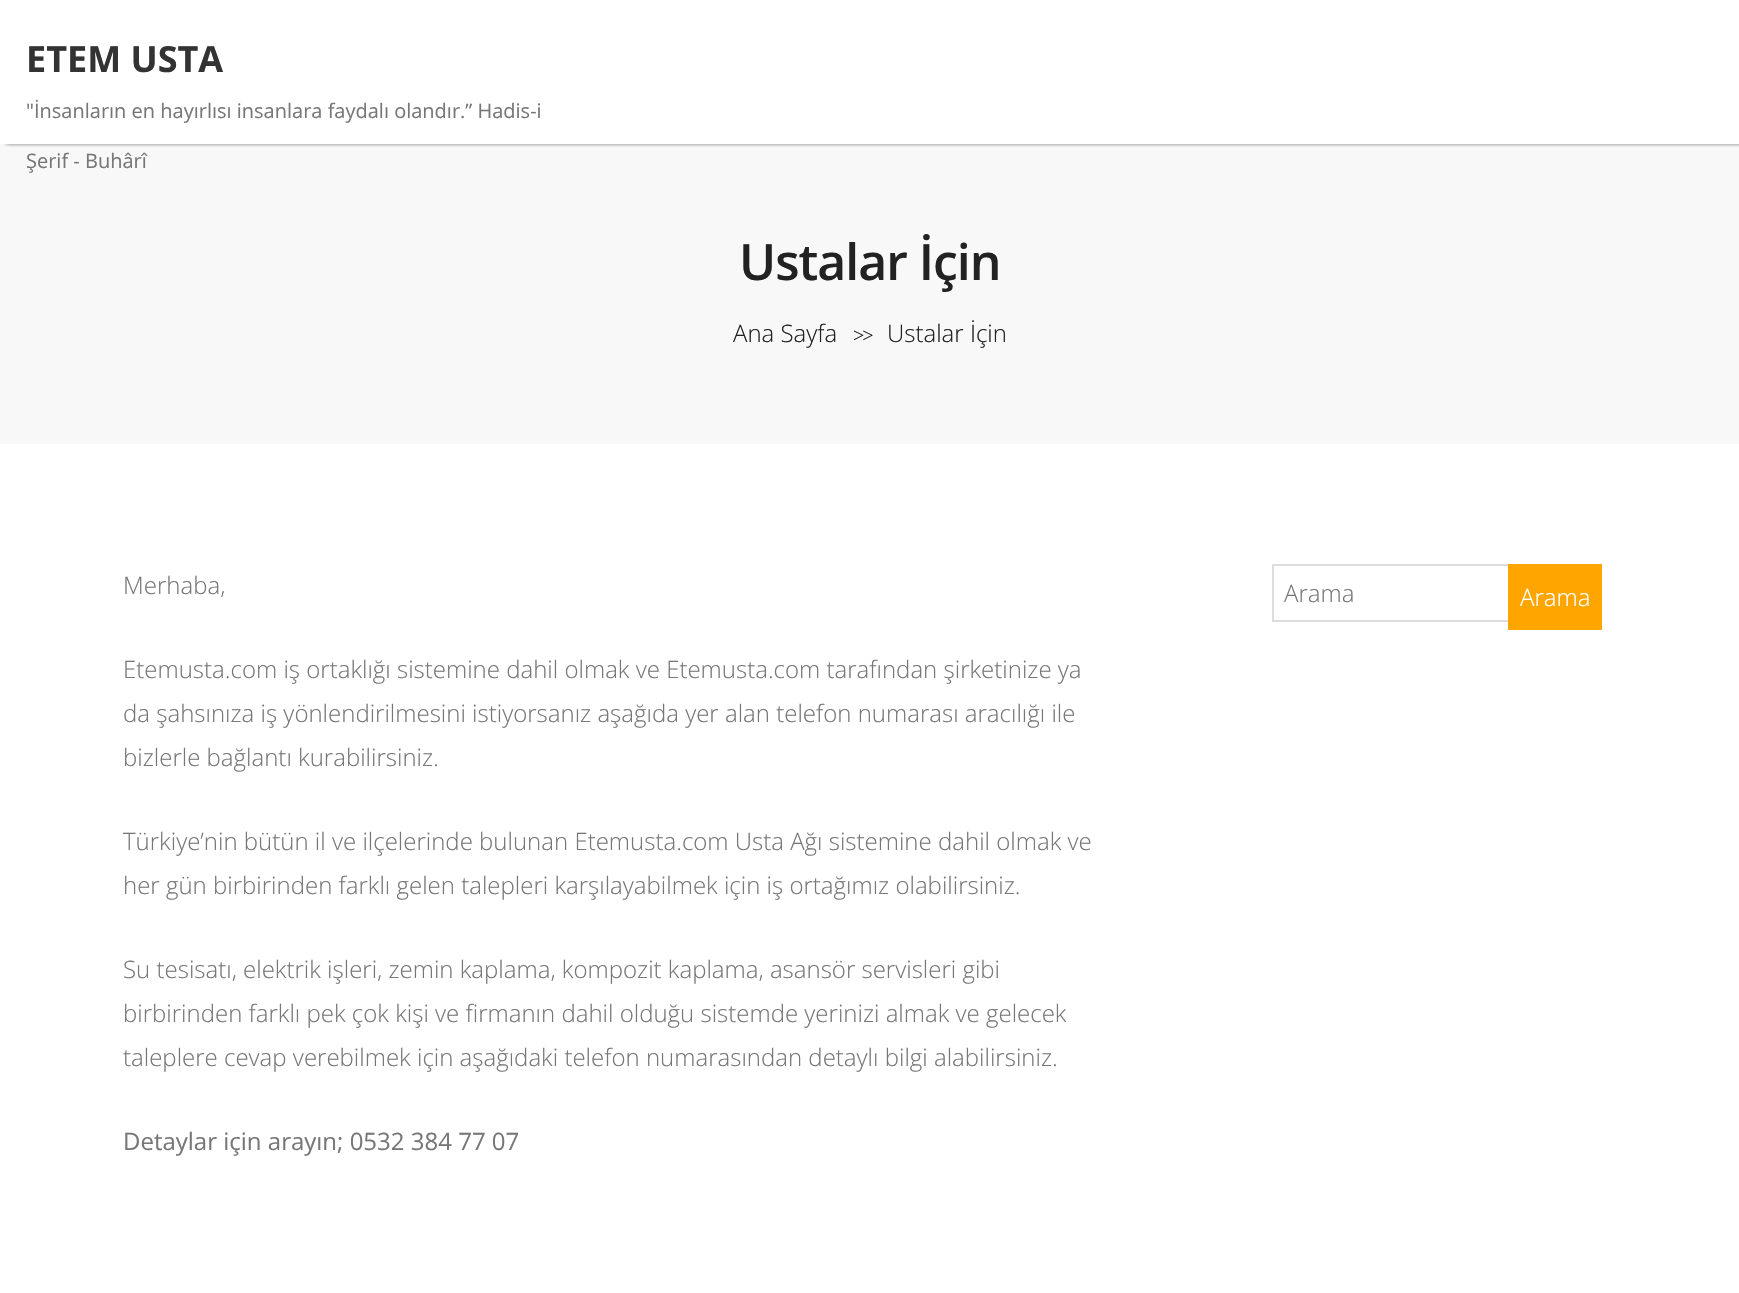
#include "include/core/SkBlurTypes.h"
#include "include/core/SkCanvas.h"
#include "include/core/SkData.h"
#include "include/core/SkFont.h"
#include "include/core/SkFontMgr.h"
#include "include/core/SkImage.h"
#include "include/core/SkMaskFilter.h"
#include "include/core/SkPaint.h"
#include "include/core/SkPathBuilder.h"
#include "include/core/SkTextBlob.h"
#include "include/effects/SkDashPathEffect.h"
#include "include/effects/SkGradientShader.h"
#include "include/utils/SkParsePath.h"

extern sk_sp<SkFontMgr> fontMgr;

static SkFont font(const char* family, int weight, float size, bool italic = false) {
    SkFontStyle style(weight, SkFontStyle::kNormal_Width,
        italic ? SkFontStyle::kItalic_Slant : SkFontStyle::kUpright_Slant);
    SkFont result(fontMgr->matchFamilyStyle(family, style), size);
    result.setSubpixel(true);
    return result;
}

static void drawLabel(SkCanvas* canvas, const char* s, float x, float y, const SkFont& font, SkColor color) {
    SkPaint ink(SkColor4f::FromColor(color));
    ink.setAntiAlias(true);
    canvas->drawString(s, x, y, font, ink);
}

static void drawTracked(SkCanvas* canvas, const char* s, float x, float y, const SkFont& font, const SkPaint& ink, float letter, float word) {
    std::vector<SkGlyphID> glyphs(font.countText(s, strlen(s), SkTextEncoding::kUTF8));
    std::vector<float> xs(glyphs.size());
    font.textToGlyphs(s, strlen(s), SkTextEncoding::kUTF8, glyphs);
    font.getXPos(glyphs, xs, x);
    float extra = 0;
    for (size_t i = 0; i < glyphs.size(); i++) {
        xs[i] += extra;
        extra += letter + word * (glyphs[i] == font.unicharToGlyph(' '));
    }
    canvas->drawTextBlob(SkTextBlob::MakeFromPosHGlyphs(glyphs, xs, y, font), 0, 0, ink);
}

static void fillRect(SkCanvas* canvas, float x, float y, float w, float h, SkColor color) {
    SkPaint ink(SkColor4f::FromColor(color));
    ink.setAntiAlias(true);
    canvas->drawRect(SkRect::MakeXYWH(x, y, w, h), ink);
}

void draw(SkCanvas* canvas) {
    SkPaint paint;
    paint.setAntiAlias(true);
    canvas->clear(0xFFFFFFFF);
    fillRect(canvas, 0, 144, 1739, 300, 0xFFF8F8F8);
    canvas->save();
    canvas->clipRect(SkRect::MakeXYWH(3, 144, 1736, 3));
    paint.setColor(0x80000000);
    paint.setMaskFilter(SkMaskFilter::MakeBlur(kNormal_SkBlurStyle, 2));
    canvas->drawRect(SkRect::MakeXYWH(6, 0, 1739, 144), paint);
    paint.setMaskFilter(nullptr);
    canvas->restore();
    SkFont font1 = font("Open Sans", 700, 36);
    drawLabel(canvas, "ETEM USTA", 26, 72, font1, 0xFF333333);
    SkFont font2 = font("Open Sans", 400, 20);
    drawLabel(canvas, "\"İnsanların en hayırlısı insanlara faydalı olandır.” Hadis-i", 26, 118, font2, 0xFF777777);
    drawLabel(canvas, "Şerif - Buhârî", 26, 168, font2, 0xFF777777);
    SkFont font3 = font("Open Sans", 600, 50);
    paint.setColor(0xFF222222);
    drawTracked(canvas, "Ustalar İçin", 739, 280, font3, paint, -1, 0);
    SkFont font4 = font("Open Sans", 300, 24);
    drawLabel(canvas, "Ana Sayfa", 733, 342, font4, 0xFF222222);
    SkFont font5 = font("Liberation Serif", 400, 20);
    drawTracked(canvas, ">>", 853, 342, font5, paint, -2, 0);
    drawLabel(canvas, "Ustalar İçin", 887, 342, font4, 0xFF222222);
    drawLabel(canvas, "Merhaba,", 123, 594, font4, 0xFF777777);
    drawLabel(canvas, "Etemusta.com iş ortaklığı sistemine dahil olmak ve Etemusta.com tarafından şirketinize ya", 123, 678, font4, 0xFF777777);
    drawLabel(canvas, "da şahsınıza iş yönlendirilmesini istiyorsanız aşağıda yer alan telefon numarası aracılığı ile", 123, 722, font4, 0xFF777777);
    drawLabel(canvas, "bizlerle bağlantı kurabilirsiniz.", 123, 766, font4, 0xFF777777);
    drawLabel(canvas, "Türkiye’nin bütün il ve ilçelerinde bulunan Etemusta.com Usta Ağı sistemine dahil olmak ve", 123, 850, font4, 0xFF777777);
    drawLabel(canvas, "her gün birbirinden farklı gelen talepleri karşılayabilmek için iş ortağımız olabilirsiniz.", 123, 894, font4, 0xFF777777);
    drawLabel(canvas, "Su tesisatı, elektrik işleri, zemin kaplama, kompozit kaplama, asansör servisleri gibi", 123, 978, font4, 0xFF777777);
    drawLabel(canvas, "birbirinden farklı pek çok kişi ve firmanın dahil olduğu sistemde yerinizi almak ve gelecek", 123, 1022, font4, 0xFF777777);
    drawLabel(canvas, "taleplere cevap verebilmek için aşağıdaki telefon numarasından detaylı bilgi alabilirsiniz.", 123, 1066, font4, 0xFF777777);
    SkFont font6 = font("Open Sans", 400, 24);
    drawLabel(canvas, "Detaylar için arayın; 0532 384 77 07", 123, 1150, font6, 0xFF777777);
    fillRect(canvas, 1272, 564, 236, 2, 0xFFDDDDDD);
    fillRect(canvas, 1272, 620, 236, 2, 0xFFDDDDDD);
    fillRect(canvas, 1272, 564, 2, 58, 0xFFDDDDDD);
    drawLabel(canvas, "Arama", 1284, 602, font4, 0xFF777777);
    fillRect(canvas, 1508, 564, 94, 66, 0xFFFFA500);
    drawLabel(canvas, "Arama", 1520, 606, font4, 0xFFFFFFFF);
}
